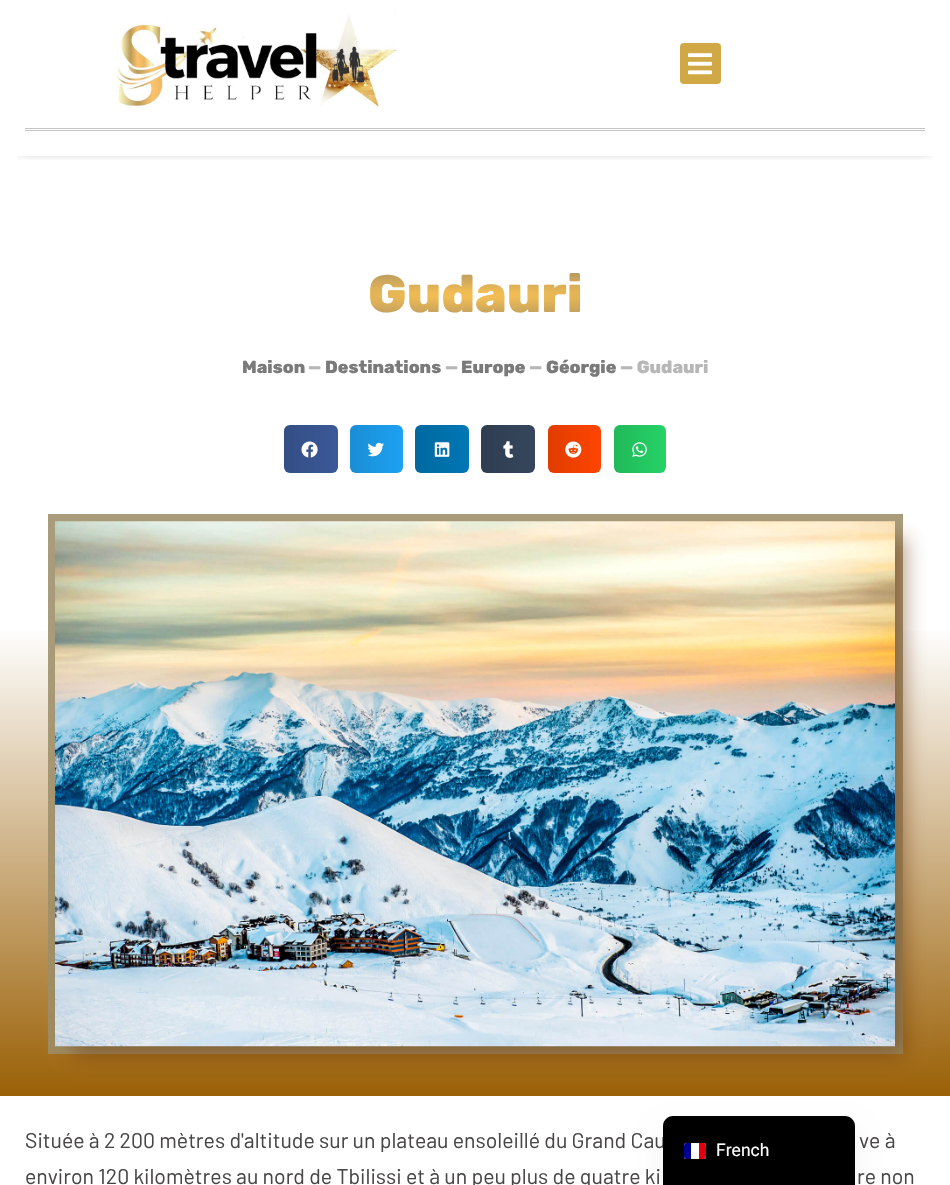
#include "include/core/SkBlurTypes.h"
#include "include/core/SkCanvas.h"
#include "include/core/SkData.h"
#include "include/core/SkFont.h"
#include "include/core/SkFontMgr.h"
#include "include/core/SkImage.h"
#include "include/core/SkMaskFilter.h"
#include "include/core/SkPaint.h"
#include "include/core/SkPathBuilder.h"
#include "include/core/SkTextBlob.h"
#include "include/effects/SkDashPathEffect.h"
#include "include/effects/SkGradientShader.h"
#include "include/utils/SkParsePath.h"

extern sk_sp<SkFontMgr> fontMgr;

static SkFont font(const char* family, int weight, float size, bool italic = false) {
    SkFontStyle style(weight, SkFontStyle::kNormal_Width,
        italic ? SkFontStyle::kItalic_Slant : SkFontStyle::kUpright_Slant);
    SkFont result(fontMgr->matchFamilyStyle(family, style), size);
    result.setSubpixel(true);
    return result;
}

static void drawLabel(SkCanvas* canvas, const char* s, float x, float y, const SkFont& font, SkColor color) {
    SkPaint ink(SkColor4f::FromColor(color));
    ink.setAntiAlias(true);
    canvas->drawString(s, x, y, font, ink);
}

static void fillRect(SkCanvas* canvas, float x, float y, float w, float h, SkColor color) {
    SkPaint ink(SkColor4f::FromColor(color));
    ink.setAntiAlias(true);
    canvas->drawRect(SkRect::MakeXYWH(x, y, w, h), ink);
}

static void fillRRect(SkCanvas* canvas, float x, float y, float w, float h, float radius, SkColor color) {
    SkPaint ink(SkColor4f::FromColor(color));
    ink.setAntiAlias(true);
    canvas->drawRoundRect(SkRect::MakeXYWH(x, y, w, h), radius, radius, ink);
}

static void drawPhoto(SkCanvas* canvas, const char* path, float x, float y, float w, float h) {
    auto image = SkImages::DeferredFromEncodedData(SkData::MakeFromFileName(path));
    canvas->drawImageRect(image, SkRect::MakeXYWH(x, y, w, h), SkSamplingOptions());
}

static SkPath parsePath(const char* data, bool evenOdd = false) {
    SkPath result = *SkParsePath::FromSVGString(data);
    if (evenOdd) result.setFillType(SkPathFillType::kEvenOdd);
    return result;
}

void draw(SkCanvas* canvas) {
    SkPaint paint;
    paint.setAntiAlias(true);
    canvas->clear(0xFFFFFFFF);
    canvas->save();
    canvas->clipRect(SkRect::MakeXYWH(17, 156, 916, 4));
    paint.setColor(0xFF3E404D);
    paint.setMaskFilter(SkMaskFilter::MakeBlur(kNormal_SkBlurStyle, 6));
    canvas->drawRect(SkRect::MakeXYWH(19, 29, 912, 119), paint);
    paint.setMaskFilter(nullptr);
    canvas->restore();
    drawPhoto(canvas, "assets/img1.png", 116, 12, 281, 97);
    fillRRect(canvas, 680, 43, 41, 41, 4, 0xFFD0A946);
    drawPhoto(canvas, "assets/img2.png", 687, 53, 26, 22);
    fillRect(canvas, 25, 128, 900, 1, 0xFFC4C4C4);
    fillRect(canvas, 25, 130, 900, 1, 0xFFC4C4C4);
    {
        const SkColor colors[] = {0xFFFFFFFF, 0xFF9A6006};
        const float stops[] = {0.5f, 1};
        const SkPoint ends[] = {{475, 156}, {475, 1096}};
        paint.setShader(SkGradientShader::MakeLinear(ends, colors, stops, 2, SkTileMode::kClamp));
        paint.setAlpha(255);
    }
    canvas->drawRect(SkRect::MakeXYWH(0, 631, 950, 465), paint);
    SkFont font1 = font("Rubik", 800, 52.5f);
    {
        const SkColor colors[] = {0xFFF1BC53, 0xFF998969};
        const float stops[] = {0.07f, 0.75f};
        SkMatrix m = SkMatrix::Translate(475, 295).preScale(587, 45);
        paint.setShader(SkGradientShader::MakeRadial({0, 0}, 1, colors, stops, 2, SkTileMode::kClamp, 0, &m));
        paint.setAlpha(255);
    }
    canvas->drawString("Gudauri", 368, 312, font1, paint);
    SkFont font2 = font("Rubik", 800, 17.5f);
    drawLabel(canvas, "Maison", 242, 373, font2, 0xFF7A7A7A);
    drawLabel(canvas, "—", 308, 373, font2, 0xFFB7B7B7);
    drawLabel(canvas, "Destinations", 325, 373, font2, 0xFF7A7A7A);
    drawLabel(canvas, "—", 445, 373, font2, 0xFFB7B7B7);
    drawLabel(canvas, "Europe", 461, 373, font2, 0xFF7A7A7A);
    drawLabel(canvas, "—", 529, 373, font2, 0xFFB7B7B7);
    drawLabel(canvas, "Géorgie", 546, 373, font2, 0xFF7A7A7A);
    drawLabel(canvas, "— Gudauri", 620, 373, font2, 0xFFB7B7B7);
    fillRRect(canvas, 284, 425, 54, 48, 6, 0xFF3B5998);
    {
        const SkColor colors[] = {0x1F000000, 0x00000000};
        const float stops[] = {0, 1};
        const SkPoint ends[] = {{284, 449}, {338, 449}};
        paint.setShader(SkGradientShader::MakeLinear(ends, colors, stops, 2, SkTileMode::kClamp));
        paint.setAlpha(255);
    }
    canvas->drawRoundRect(SkRect::MakeXYWH(284, 425, 54, 48), 6, 6, paint);
    drawPhoto(canvas, "assets/img3.png", 301, 441, 17, 17);
    fillRRect(canvas, 350, 425, 53, 48, 6, 0xFF1DA1F2);
    {
        const SkColor colors[] = {0x1F000000, 0x00000000};
        const float stops[] = {0, 1};
        const SkPoint ends[] = {{350, 449}, {403, 449}};
        paint.setShader(SkGradientShader::MakeLinear(ends, colors, stops, 2, SkTileMode::kClamp));
        paint.setAlpha(255);
    }
    canvas->drawRoundRect(SkRect::MakeXYWH(350, 425, 53, 48), 6, 6, paint);
    drawPhoto(canvas, "assets/img4.png", 368, 442, 16, 15);
    fillRRect(canvas, 415, 425, 54, 48, 6, 0xFF0077B5);
    {
        const SkColor colors[] = {0x1F000000, 0x00000000};
        const float stops[] = {0, 1};
        const SkPoint ends[] = {{415, 449}, {469, 449}};
        paint.setShader(SkGradientShader::MakeLinear(ends, colors, stops, 2, SkTileMode::kClamp));
        paint.setAlpha(255);
    }
    canvas->drawRoundRect(SkRect::MakeXYWH(415, 425, 54, 48), 6, 6, paint);
    drawPhoto(canvas, "assets/img5.png", 434, 442, 16, 15);
    fillRRect(canvas, 481, 425, 54, 48, 6, 0xFF35465C);
    {
        const SkColor colors[] = {0x1F000000, 0x00000000};
        const float stops[] = {0, 1};
        const SkPoint ends[] = {{481, 449}, {535, 449}};
        paint.setShader(SkGradientShader::MakeLinear(ends, colors, stops, 2, SkTileMode::kClamp));
        paint.setAlpha(255);
    }
    canvas->drawRoundRect(SkRect::MakeXYWH(481, 425, 54, 48), 6, 6, paint);
    drawPhoto(canvas, "assets/img6.png", 503, 441, 11, 17);
    fillRRect(canvas, 548, 425, 53, 48, 6, 0xFFFF4500);
    {
        const SkColor colors[] = {0x1F000000, 0x00000000};
        const float stops[] = {0, 1};
        const SkPoint ends[] = {{548, 449}, {601, 449}};
        paint.setShader(SkGradientShader::MakeLinear(ends, colors, stops, 2, SkTileMode::kClamp));
        paint.setAlpha(255);
    }
    canvas->drawRoundRect(SkRect::MakeXYWH(548, 425, 53, 48), 6, 6, paint);
    drawPhoto(canvas, "assets/img7.png", 565, 441, 17, 17);
    fillRRect(canvas, 614, 425, 52, 48, 6, 0xFF25D366);
    {
        const SkColor colors[] = {0x1F000000, 0x00000000};
        const float stops[] = {0, 1};
        const SkPoint ends[] = {{614, 449}, {666, 449}};
        paint.setShader(SkGradientShader::MakeLinear(ends, colors, stops, 2, SkTileMode::kClamp));
        paint.setAlpha(255);
    }
    canvas->drawRoundRect(SkRect::MakeXYWH(614, 425, 52, 48), 6, 6, paint);
    drawPhoto(canvas, "assets/img8.png", 632, 442, 15, 15);
    paint.setStroke(true);
    paint.setStrokeWidth(8);
    paint.setShader(nullptr);
    paint.setColor(0xDE9C8D67);
    canvas->drawRect(SkRect::MakeXYWH(52, 518, 847, 532), paint);
    paint.setStroke(false);
    paint.setColor(0x80653106);
    paint.setMaskFilter(SkMaskFilter::MakeBlur(kNormal_SkBlurStyle, 10));
    canvas->drawRect(SkRect::MakeXYWH(73, 538, 832, 517), paint);
    paint.setMaskFilter(nullptr);
    drawPhoto(canvas, "assets/img9.png", 55, 521, 840, 526);
    SkFont font3 = font("Barlow", 400, 21.25f);
    drawLabel(canvas, "Située à 2 200 mètres d'altitude sur un plateau ensoleillé du Grand Cau", 25, 1148, font3, 0xFF484646);
    drawLabel(canvas, "ve à", 859, 1148, font3, 0xFF484646);
    drawLabel(canvas, "environ 120 kilomètres au nord de Tbilissi et à un peu plus de quatre ki", 25, 1184, font3, 0xFF484646);
    drawLabel(canvas, "re non", 857, 1184, font3, 0xFF484646);
    paint.setColor(0x0D000000);
    paint.setMaskFilter(SkMaskFilter::MakeBlur(kNormal_SkBlurStyle, 12.5f));
    canvas->drawRoundRect(SkRect::MakeXYWH(663, 1129, 192, 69), 10, 10, paint);
    paint.setMaskFilter(nullptr);
    paint.setColor(0xFF000000);
    canvas->drawPath(parsePath("M673 1116H845C850.5 1116 855 1120.5 855 1126V1185H663V1126C663 1120.5 667.5 1116 673 1116Z"), paint);
    fillRRect(canvas, 684, 1143, 22, 16, 2.5f, 0xFFFFFFFF);
    paint.setColor(0xFF000091);
    canvas->drawPath(parsePath("M686.5 1143H691V1159H686.5C685 1159 684 1158 684 1156.5V1145.5C684 1144 685 1143 686.5 1143Z"), paint);
    paint.setColor(0xFFE1000F);
    canvas->drawPath(parsePath("M699 1143H703.5C705 1143 706 1144 706 1145.5V1156.5C706 1158 705 1159 703.5 1159H699Z"), paint);
    SkFont font4 = font("Roboto", 400, 17.5f);
    drawLabel(canvas, "French", 716, 1156, font4, 0xFFFFFFFF);
}
